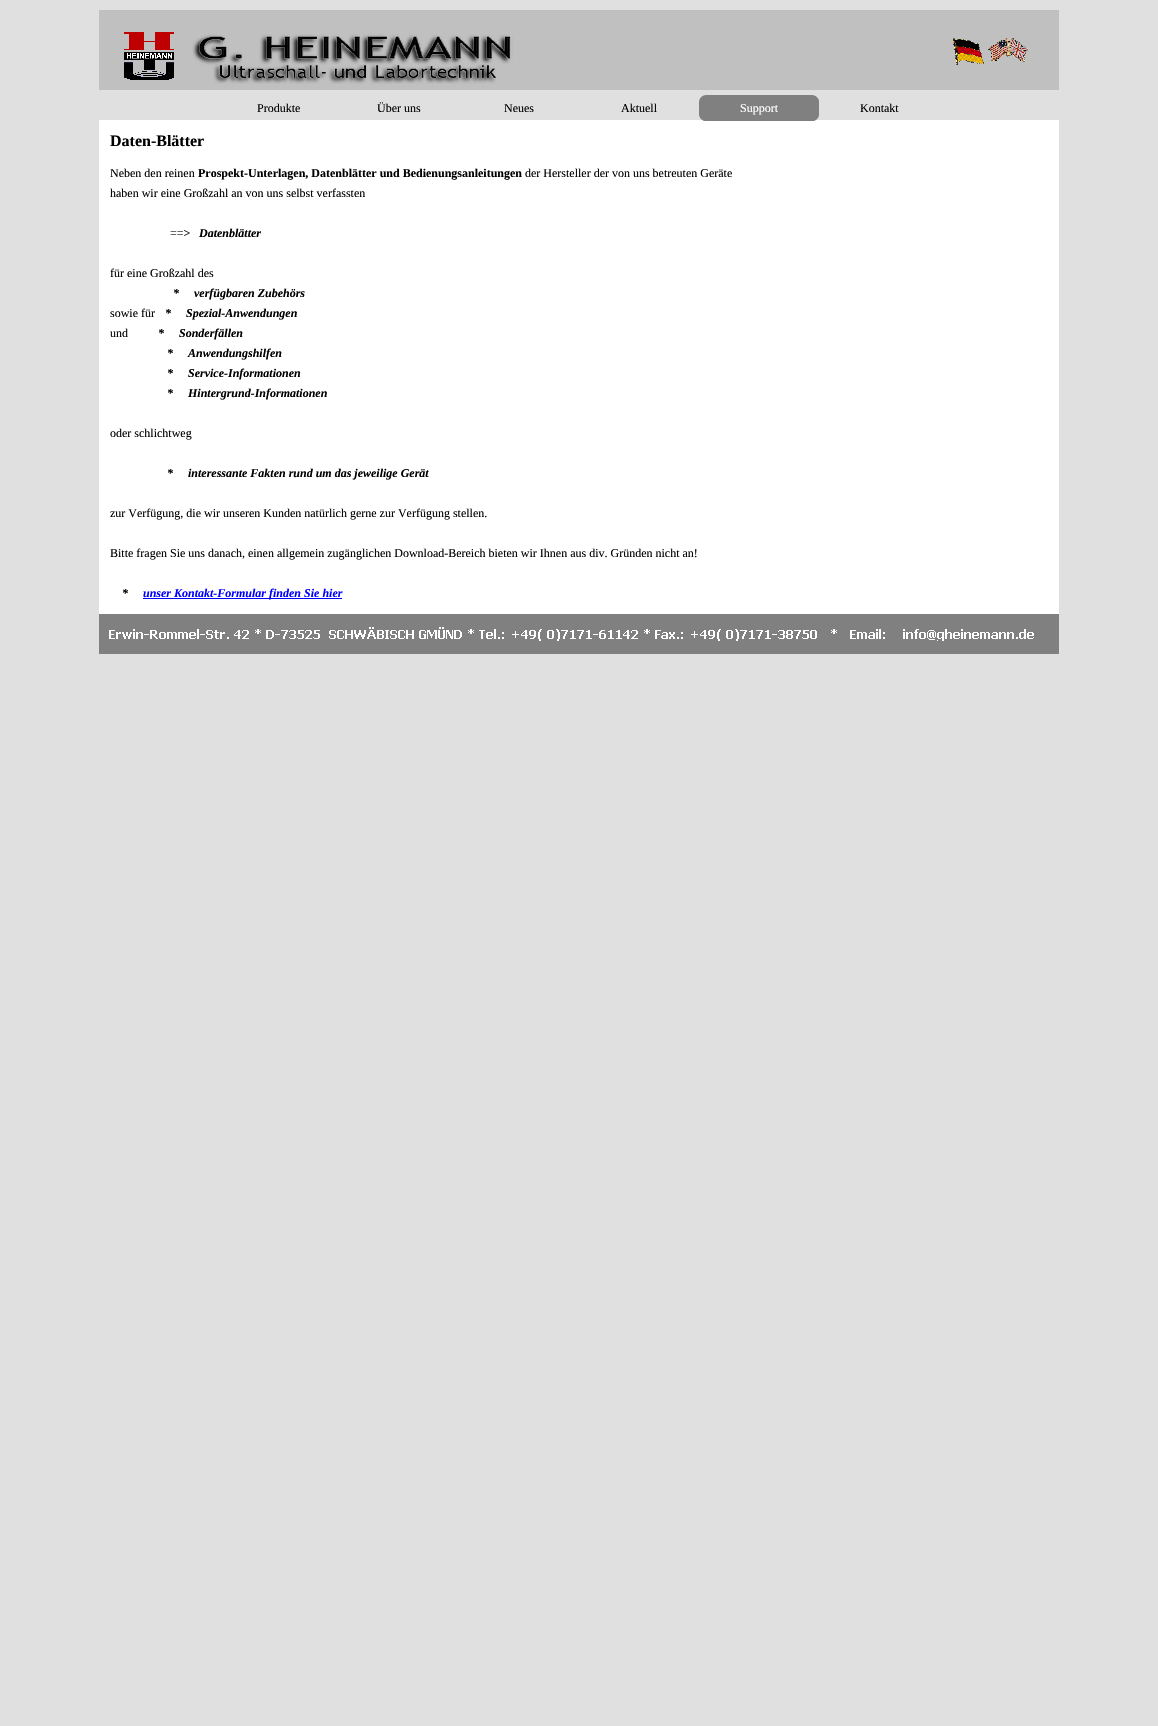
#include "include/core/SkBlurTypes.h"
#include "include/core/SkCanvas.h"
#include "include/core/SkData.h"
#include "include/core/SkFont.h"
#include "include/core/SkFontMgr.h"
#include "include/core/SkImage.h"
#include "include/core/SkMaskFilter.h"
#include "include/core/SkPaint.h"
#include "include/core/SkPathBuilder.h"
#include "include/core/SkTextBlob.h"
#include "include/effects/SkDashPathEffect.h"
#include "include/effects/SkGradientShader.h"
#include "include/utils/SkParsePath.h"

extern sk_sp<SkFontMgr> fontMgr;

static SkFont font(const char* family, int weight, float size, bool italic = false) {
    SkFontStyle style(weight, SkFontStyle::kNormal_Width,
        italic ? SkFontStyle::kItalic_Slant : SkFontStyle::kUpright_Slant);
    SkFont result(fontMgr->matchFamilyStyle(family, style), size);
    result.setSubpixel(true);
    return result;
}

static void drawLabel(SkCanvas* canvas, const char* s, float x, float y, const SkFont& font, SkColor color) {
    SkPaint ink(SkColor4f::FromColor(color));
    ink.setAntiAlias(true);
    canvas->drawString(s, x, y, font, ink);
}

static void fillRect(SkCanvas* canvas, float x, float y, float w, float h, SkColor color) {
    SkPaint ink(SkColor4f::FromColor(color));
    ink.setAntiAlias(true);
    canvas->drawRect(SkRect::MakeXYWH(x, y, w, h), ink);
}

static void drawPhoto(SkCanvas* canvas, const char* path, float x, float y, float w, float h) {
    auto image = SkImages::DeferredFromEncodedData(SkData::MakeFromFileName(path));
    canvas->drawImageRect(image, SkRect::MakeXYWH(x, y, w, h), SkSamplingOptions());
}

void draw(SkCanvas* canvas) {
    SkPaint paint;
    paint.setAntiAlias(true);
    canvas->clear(0xFFE0E0E0);
    fillRect(canvas, 99, 10, 960, 80, 0xFFC0C0C0);
    drawPhoto(canvas, "assets/img1.png", 124, 32, 50, 48);
    drawPhoto(canvas, "assets/img2.png", 192, 34, 321, 31);
    drawPhoto(canvas, "assets/img3.png", 952, 38, 32, 27);
    drawPhoto(canvas, "assets/img4.png", 988, 38, 40, 24);
    drawPhoto(canvas, "assets/img5.png", 213, 64, 283, 20);
    SkFont font1 = font("Liberation Serif", 400, 12);
    drawLabel(canvas, "Produkte", 257, 112, font1, 0xFF000000);
    drawLabel(canvas, "Über uns", 377, 112, font1, 0xFF000000);
    drawLabel(canvas, "Neues", 504, 112, font1, 0xFF000000);
    drawLabel(canvas, "Aktuell", 621, 112, font1, 0xFF000000);
    fillRect(canvas, 99, 120, 960, 494, 0xFFFFFFFF);
    drawPhoto(canvas, "assets/img6.png", 699, 95, 120, 26);
    drawLabel(canvas, "Support", 740, 112, font1, 0xFFFFFFFF);
    drawLabel(canvas, "Kontakt", 860, 112, font1, 0xFF000000);
    SkFont font2 = font("Liberation Serif", 700, 16);
    drawLabel(canvas, "Daten-Blätter", 110, 146, font2, 0xFF000000);
    drawLabel(canvas, "Neben den reinen", 110, 177, font1, 0xFF000000);
    SkFont font3 = font("Liberation Serif", 700, 12);
    drawLabel(canvas, "Prospekt-Unterlagen, Datenblätter und Bedienungsanleitungen", 198, 177, font3, 0xFF000000);
    drawLabel(canvas, "der Hersteller der von uns betreuten Geräte", 525, 177, font1, 0xFF000000);
    drawLabel(canvas, "haben wir eine Großzahl an von uns selbst verfassten", 110, 197, font1, 0xFF000000);
    drawLabel(canvas, "==>", 170, 237, font1, 0xFF000000);
    SkFont font4 = font("Liberation Serif", 700, 12, true);
    drawLabel(canvas, "Datenblätter", 199, 237, font4, 0xFF000000);
    drawLabel(canvas, "für eine Großzahl des", 110, 277, font1, 0xFF000000);
    drawLabel(canvas, "*     verfügbaren Zubehörs", 173, 297, font4, 0xFF000000);
    drawLabel(canvas, "sowie für", 110, 317, font1, 0xFF000000);
    drawLabel(canvas, "*     Spezial-Anwendungen", 165, 317, font4, 0xFF000000);
    drawLabel(canvas, "und", 110, 337, font1, 0xFF000000);
    drawLabel(canvas, "*     Sonderfällen", 158, 337, font4, 0xFF000000);
    drawLabel(canvas, "*     Anwendungshilfen", 167, 357, font4, 0xFF000000);
    drawLabel(canvas, "*     Service-Informationen", 167, 377, font4, 0xFF000000);
    drawLabel(canvas, "*     Hintergrund-Informationen", 167, 397, font4, 0xFF000000);
    drawLabel(canvas, "oder schlichtweg", 110, 437, font1, 0xFF000000);
    drawLabel(canvas, "*     interessante Fakten rund um das jeweilige Gerät", 167, 477, font4, 0xFF000000);
    drawLabel(canvas, "zur Verfügung, die wir unseren Kunden natürlich gerne zur Verfügung stellen.", 110, 517, font1, 0xFF000000);
    drawLabel(canvas, "Bitte fragen Sie uns danach, einen allgemein zugänglichen Download-Bereich bieten wir Ihnen aus div. Gründen nicht an!", 110, 557, font1, 0xFF000000);
    drawLabel(canvas, "*", 122, 597, font4, 0xFF000000);
    fillRect(canvas, 143, 598, 199, 1, 0xFF0000FF);
    drawLabel(canvas, "unser Kontakt-Formular finden Sie hier", 143, 597, font4, 0xFF0000FF);
    fillRect(canvas, 99, 614, 960, 40, 0xFF808080);
    drawPhoto(canvas, "assets/img7.png", 109, 627, 925, 14);
}
